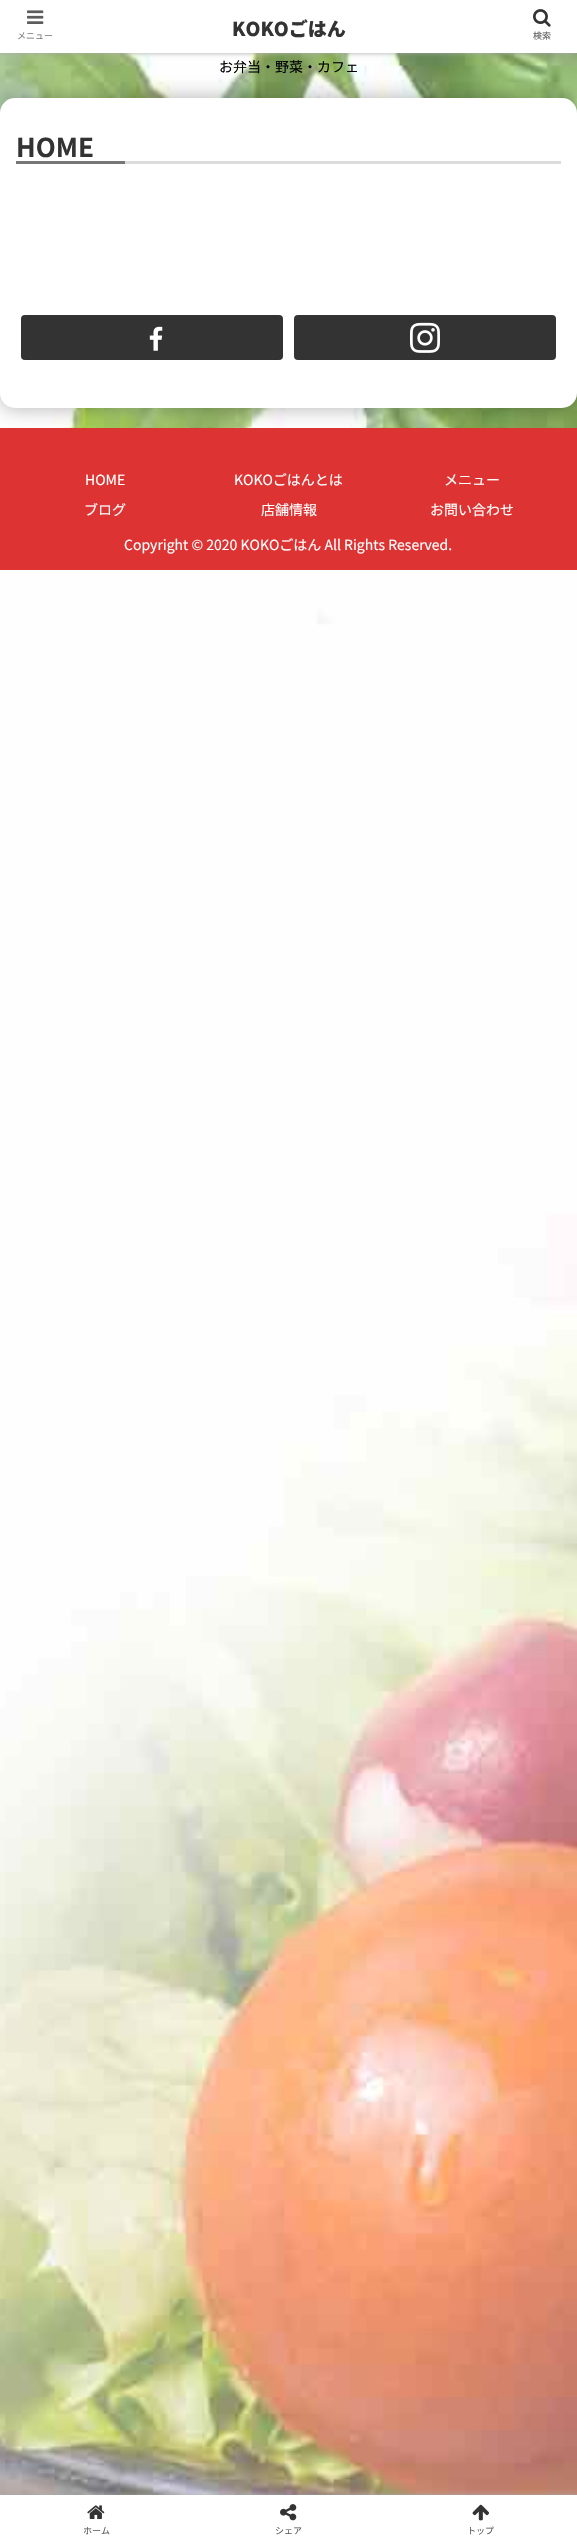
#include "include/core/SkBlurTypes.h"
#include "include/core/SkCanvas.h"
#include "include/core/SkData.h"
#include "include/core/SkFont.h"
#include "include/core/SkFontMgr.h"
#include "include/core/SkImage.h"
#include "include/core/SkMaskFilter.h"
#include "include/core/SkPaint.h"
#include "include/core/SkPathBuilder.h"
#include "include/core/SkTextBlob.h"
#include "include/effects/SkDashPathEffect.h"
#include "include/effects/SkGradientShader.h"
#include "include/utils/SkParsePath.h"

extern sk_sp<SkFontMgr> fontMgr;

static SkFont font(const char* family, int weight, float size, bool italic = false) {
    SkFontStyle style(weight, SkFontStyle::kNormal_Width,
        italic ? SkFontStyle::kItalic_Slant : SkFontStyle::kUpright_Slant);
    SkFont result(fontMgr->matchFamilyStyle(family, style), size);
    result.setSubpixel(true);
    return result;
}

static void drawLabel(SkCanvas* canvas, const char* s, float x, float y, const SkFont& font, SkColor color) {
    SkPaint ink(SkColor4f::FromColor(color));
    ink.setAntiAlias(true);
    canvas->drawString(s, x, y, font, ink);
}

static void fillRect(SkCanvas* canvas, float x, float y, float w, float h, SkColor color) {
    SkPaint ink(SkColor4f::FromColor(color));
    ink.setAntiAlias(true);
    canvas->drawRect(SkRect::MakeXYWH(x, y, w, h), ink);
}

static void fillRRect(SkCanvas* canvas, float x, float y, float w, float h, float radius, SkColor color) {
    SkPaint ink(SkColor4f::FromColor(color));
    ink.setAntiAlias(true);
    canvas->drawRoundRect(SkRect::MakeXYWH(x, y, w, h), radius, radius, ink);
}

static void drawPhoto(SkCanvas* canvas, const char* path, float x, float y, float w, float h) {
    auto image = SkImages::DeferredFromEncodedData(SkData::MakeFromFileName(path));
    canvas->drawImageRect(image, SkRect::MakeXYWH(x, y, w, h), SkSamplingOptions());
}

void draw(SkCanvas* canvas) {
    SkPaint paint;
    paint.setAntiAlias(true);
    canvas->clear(0xFFFFFFFF);
    drawPhoto(canvas, "assets/img8.png", 0, 53, 577, 2442);
    paint.setColor(0xFFA9A9A9);
    paint.setMaskFilter(SkMaskFilter::MakeBlur(kNormal_SkBlurStyle, 2.5f));
    canvas->drawRect(SkRect::MakeXYWH(0, 0, 577, 53), paint);
    paint.setMaskFilter(nullptr);
    fillRect(canvas, 0, 0, 577, 53, 0xFFFFFFFF);
    drawPhoto(canvas, "assets/img1.png", 27, 10, 17, 14);
    SkFont font1 = font("Noto Sans JP", 400, 9);
    drawLabel(canvas, "メニュー", 17, 39, font1, 0xFF7C7C7C);
    SkFont font2 = font("Noto Sans JP", 900, 19);
    drawLabel(canvas, "KOKOごはん", 232, 36, font2, 0xFF333333);
    drawPhoto(canvas, "assets/img2.png", 533, 9, 18, 18);
    drawLabel(canvas, "検索", 533, 39, font1, 0xFF5C5C5C);
    SkFont font3 = font("Noto Sans JP", 400, 14);
    drawLabel(canvas, "お弁当・野菜・カフェ", 219, 72, font3, 0xFF000000);
    fillRect(canvas, 0, 428, 577, 142, 0xFFDD3333);
    paint.setColor(0x4D000000);
    paint.setMaskFilter(SkMaskFilter::MakeBlur(kNormal_SkBlurStyle, 10));
    canvas->drawRoundRect(SkRect::MakeXYWH(0, 98, 577, 310), 15, 15, paint);
    paint.setMaskFilter(nullptr);
    fillRRect(canvas, 0, 98, 577, 310, 15, 0xFFFFFFFF);
    fillRect(canvas, 125, 161, 436, 3, 0xFFDCDCDC);
    SkFont font4 = font("Noto Sans JP", 700, 26);
    drawLabel(canvas, "HOME", 16, 157, font4, 0xFF333333);
    fillRect(canvas, 16, 161, 109, 3, 0xFF777777);
    fillRRect(canvas, 21, 315, 262, 45, 4, 0xFF333333);
    drawPhoto(canvas, "assets/img3.png", 149, 326, 14, 25);
    fillRRect(canvas, 294, 315, 262, 45, 4, 0xFF333333);
    drawPhoto(canvas, "assets/img4.png", 410, 322, 30, 31);
    drawLabel(canvas, "HOME", 85, 485, font3, 0xFFFFFFFF);
    drawLabel(canvas, "KOKOごはんとは", 234, 485, font3, 0xFFFFFFFF);
    drawLabel(canvas, "メニュー", 444, 485, font3, 0xFFFFFFFF);
    drawLabel(canvas, "ブログ", 84, 515, font3, 0xFFFFFFFF);
    drawLabel(canvas, "店舗情報", 261, 515, font3, 0xFFFFFFFF);
    drawLabel(canvas, "お問い合わせ", 430, 515, font3, 0xFFFFFFFF);
    drawLabel(canvas, "Copyright © 2020 KOKOごはん All Rights Reserved.", 124, 550, font3, 0xFFFFFFFF);
    paint.setColor(0xFFA9A9A9);
    paint.setMaskFilter(SkMaskFilter::MakeBlur(kNormal_SkBlurStyle, 2.5f));
    canvas->drawRect(SkRect::MakeXYWH(0, 2495, 577, 50), paint);
    paint.setMaskFilter(nullptr);
    fillRect(canvas, 0, 2495, 577, 50, 0xFFFFFFFF);
    drawPhoto(canvas, "assets/img5.png", 87, 2505, 18, 14);
    drawLabel(canvas, "ホーム", 83, 2534, font1, 0xFF5C5C5C);
    drawPhoto(canvas, "assets/img6.png", 280, 2504, 17, 17);
    drawLabel(canvas, "シェア", 275, 2534, font1, 0xFF5C5C5C);
    drawPhoto(canvas, "assets/img7.png", 472, 2504, 17, 17);
    drawLabel(canvas, "トップ", 467, 2534, font1, 0xFF5C5C5C);
}
